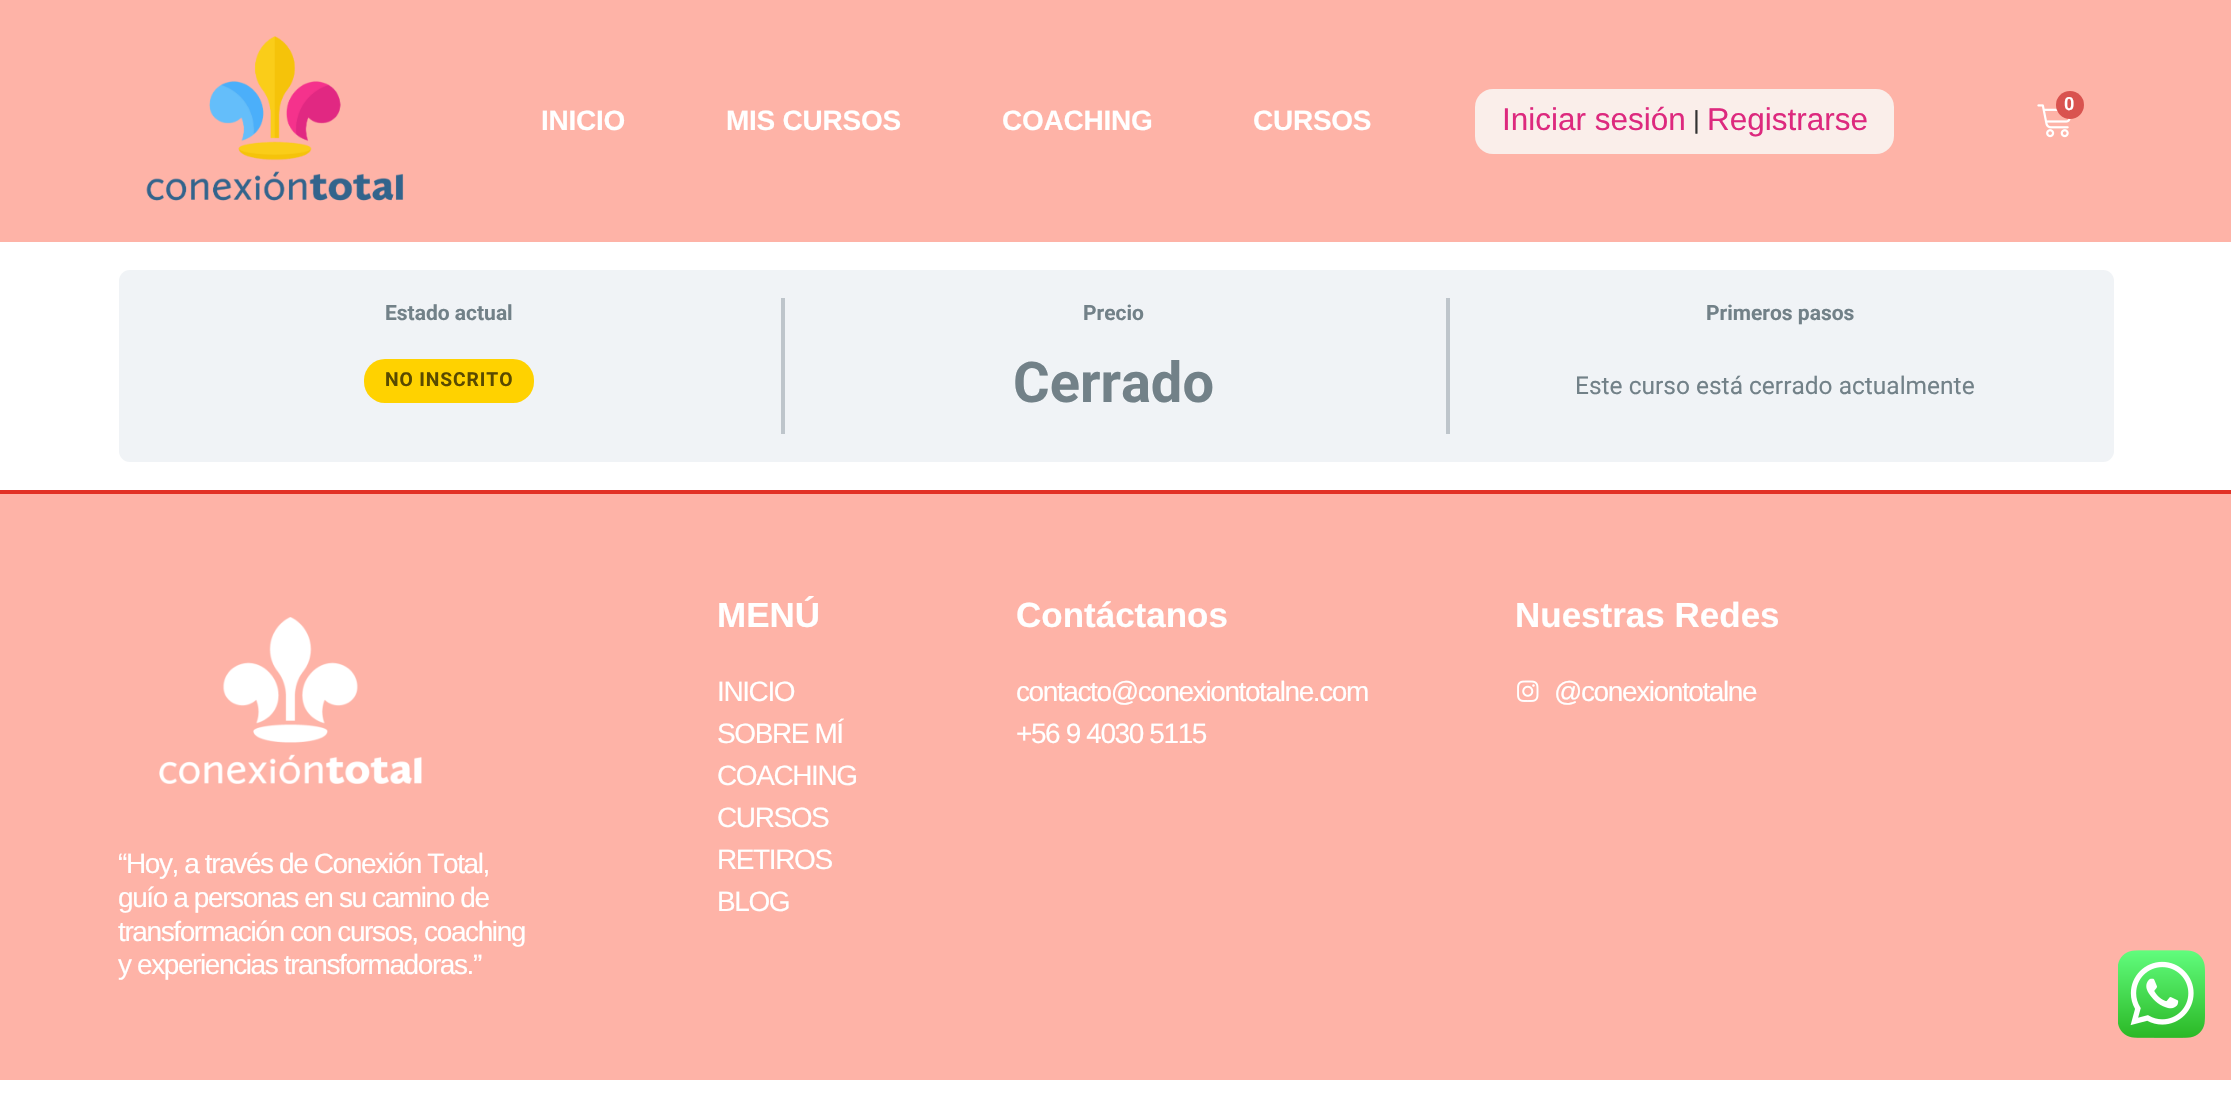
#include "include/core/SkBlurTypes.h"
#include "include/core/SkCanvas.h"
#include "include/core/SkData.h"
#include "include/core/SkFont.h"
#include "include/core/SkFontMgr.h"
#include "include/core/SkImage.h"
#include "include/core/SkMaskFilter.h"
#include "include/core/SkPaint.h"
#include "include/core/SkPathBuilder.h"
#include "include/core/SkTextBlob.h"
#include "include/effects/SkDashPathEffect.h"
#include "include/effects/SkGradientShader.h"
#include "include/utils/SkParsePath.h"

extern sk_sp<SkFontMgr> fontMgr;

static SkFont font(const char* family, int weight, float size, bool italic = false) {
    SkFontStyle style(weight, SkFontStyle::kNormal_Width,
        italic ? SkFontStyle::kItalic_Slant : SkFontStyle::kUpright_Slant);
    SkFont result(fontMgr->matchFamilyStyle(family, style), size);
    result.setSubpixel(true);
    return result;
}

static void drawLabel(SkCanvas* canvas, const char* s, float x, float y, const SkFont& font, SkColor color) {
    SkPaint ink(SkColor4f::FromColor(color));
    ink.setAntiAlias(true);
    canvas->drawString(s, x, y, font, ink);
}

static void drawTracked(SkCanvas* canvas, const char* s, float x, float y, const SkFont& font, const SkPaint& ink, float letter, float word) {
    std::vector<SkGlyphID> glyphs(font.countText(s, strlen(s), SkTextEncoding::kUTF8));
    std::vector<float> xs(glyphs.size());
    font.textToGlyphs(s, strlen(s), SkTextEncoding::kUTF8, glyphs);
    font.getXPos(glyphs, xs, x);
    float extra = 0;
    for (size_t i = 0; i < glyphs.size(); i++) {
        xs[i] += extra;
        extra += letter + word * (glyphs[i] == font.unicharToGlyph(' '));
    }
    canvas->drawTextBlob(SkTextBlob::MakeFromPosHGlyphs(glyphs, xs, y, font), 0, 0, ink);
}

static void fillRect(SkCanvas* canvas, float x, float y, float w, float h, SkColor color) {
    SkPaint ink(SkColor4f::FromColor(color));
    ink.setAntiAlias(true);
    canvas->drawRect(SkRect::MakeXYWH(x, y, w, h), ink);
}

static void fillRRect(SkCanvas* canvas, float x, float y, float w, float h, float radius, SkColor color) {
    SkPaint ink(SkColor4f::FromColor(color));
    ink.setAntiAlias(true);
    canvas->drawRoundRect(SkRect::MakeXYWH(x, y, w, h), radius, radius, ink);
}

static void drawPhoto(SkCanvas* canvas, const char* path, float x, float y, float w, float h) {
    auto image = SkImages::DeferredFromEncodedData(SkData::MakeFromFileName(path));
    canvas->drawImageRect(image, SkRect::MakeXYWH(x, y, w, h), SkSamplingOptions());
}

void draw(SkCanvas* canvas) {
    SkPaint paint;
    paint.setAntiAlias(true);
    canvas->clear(0xFFFFFFFF);
    fillRect(canvas, 0, 0, 2231, 242, 0xFFFEB3A7);
    drawPhoto(canvas, "assets/img1.png", 146, 36, 258, 165);
    drawPhoto(canvas, "assets/img2.png", 2037, 104, 34, 34);
    paint.setColor(0xFFD9534F);
    canvas->drawCircle(2070, 105, 14, paint);
    SkFont font1 = font("Roboto", 600, 18);
    drawLabel(canvas, "0", 2064, 110, font1, 0xFFFFFFFF);
    SkFont font2 = font("Liberation Sans", 700, 28);
    paint.setColor(0xFFFFFFFF);
    drawTracked(canvas, "INICIO", 541, 130, font2, paint, -0.25f, 0);
    drawTracked(canvas, "MIS CURSOS", 726, 130, font2, paint, -0.25f, 0);
    drawTracked(canvas, "COACHING", 1002, 130, font2, paint, -0.25f, 0);
    drawTracked(canvas, "CURSOS", 1253, 130, font2, paint, -0.25f, 0);
    fillRRect(canvas, 1475, 89, 419, 65, 18, 0xFFFAEEEA);
    SkFont font3 = font("Liberation Sans", 400, 31.5f);
    drawLabel(canvas, "Iniciar sesión", 1502, 130, font3, 0xFFDD297E);
    SkFont font4 = font("Roboto", 400, 28);
    drawLabel(canvas, "|", 1693, 130, font4, 0xFF333333);
    drawLabel(canvas, "Registrarse", 1707, 130, font3, 0xFFDD297E);
    fillRRect(canvas, 119, 270, 1995, 192, 11, 0xFFF0F3F6);
    fillRect(canvas, 781, 298, 4, 136, 0xFFBEC5CB);
    SkFont font5 = font("Roboto", 700, 21);
    drawLabel(canvas, "Estado actual", 385, 320, font5, 0xFF728188);
    fillRRect(canvas, 364, 359, 170, 44, 21, 0xFFFFD200);
    SkFont font6 = font("Roboto", 700, 19.25f);
    paint.setColor(0xFF594A00);
    drawTracked(canvas, "NO INSCRITO", 385, 386, font6, paint, 0.9f, 0);
    fillRect(canvas, 1446, 298, 4, 136, 0xFFBEC5CB);
    drawLabel(canvas, "Precio", 1083, 320, font5, 0xFF728188);
    SkFont font7 = font("Roboto", 700, 56);
    drawLabel(canvas, "Cerrado", 1013, 402, font7, 0xFF728188);
    drawLabel(canvas, "Primeros pasos", 1706, 320, font5, 0xFF728188);
    SkFont font8 = font("Roboto", 400, 24.5f);
    drawLabel(canvas, "Este curso está cerrado actualmente", 1575, 394, font8, 0xFF728188);
    fillRect(canvas, 0, 494, 2231, 586, 0xFFFEB3A7);
    fillRect(canvas, 0, 490, 2231, 4, 0xFFE23125);
    SkFont font9 = font("Liberation Sans", 700, 35);
    drawLabel(canvas, "MENÚ", 717, 627, font9, 0xFFFFFFFF);
    SkFont font10 = font("Liberation Sans", 400, 28);
    paint.setColor(0xFFFFFFFF);
    drawTracked(canvas, "INICIO", 717, 701, font10, paint, -1.4f, 0);
    drawTracked(canvas, "SOBRE MÍ", 717, 743, font10, paint, -1.4f, 0);
    drawTracked(canvas, "COACHING", 717, 785, font10, paint, -1.4f, 0);
    drawTracked(canvas, "CURSOS", 717, 827, font10, paint, -1.4f, 0);
    drawTracked(canvas, "RETIROS", 717, 869, font10, paint, -1.4f, 0);
    drawTracked(canvas, "BLOG", 717, 911, font10, paint, -1.4f, 0);
    drawLabel(canvas, "Contáctanos", 1016, 627, font9, 0xFFFFFFFF);
    drawTracked(canvas, "contacto@conexiontotalne.com", 1016, 701, font10, paint, -1.4f, 0);
    drawTracked(canvas, "+56 9 4030 5115", 1016, 743, font10, paint, -1.4f, 0);
    drawLabel(canvas, "Nuestras Redes", 1515, 627, font9, 0xFFFFFFFF);
    drawPhoto(canvas, "assets/img3.png", 1517, 680, 22, 22);
    drawTracked(canvas, "@conexiontotalne", 1554, 701, font10, paint, -1.4f, 0);
    drawPhoto(canvas, "assets/img4.png", 159, 617, 263, 167);
    drawTracked(canvas, "“Hoy, a través de Conexión Total,", 118, 873, font10, paint, -1.4f, 0);
    drawTracked(canvas, "guío a personas en su camino de", 118, 907, font10, paint, -1.4f, 0);
    drawTracked(canvas, "transformación con cursos, coaching", 118, 941, font10, paint, -1.4f, 0);
    drawTracked(canvas, "y experiencias transformadoras.”", 118, 974, font10, paint, -1.4f, 0);
    drawPhoto(canvas, "assets/img5.png", 2118, 950, 87, 88);
}
